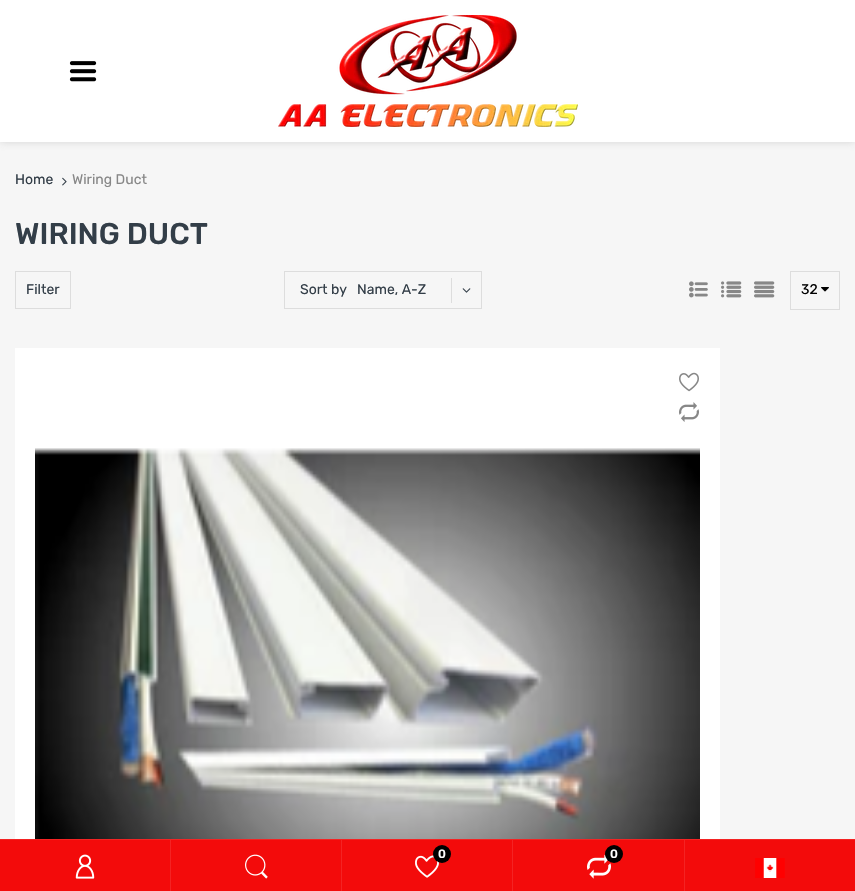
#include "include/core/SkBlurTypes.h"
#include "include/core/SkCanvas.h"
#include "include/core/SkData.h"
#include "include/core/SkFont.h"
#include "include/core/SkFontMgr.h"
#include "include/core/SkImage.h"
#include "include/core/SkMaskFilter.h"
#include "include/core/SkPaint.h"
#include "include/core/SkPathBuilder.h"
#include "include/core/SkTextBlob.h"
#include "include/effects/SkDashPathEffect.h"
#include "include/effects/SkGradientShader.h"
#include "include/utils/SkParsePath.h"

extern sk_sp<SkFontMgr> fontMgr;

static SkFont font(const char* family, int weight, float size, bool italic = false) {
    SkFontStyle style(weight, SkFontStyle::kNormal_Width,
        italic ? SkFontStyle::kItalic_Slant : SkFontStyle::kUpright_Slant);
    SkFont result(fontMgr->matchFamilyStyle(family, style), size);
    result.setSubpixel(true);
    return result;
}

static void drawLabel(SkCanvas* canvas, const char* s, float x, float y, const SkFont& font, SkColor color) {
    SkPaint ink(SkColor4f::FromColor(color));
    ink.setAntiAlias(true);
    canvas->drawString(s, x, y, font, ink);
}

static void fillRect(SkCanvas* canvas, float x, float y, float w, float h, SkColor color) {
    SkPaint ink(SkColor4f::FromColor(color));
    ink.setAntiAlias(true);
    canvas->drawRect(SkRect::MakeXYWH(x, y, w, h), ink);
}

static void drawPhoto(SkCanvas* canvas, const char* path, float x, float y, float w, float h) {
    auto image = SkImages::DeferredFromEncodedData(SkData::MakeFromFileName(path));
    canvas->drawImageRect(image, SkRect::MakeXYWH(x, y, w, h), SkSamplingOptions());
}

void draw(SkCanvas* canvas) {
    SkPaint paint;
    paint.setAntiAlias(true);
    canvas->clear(0xFFF6F6F6);
    paint.setColor(0xBFC9C9C9);
    paint.setMaskFilter(SkMaskFilter::MakeBlur(kNormal_SkBlurStyle, 4));
    canvas->drawRect(SkRect::MakeXYWH(0, 0, 855, 142), paint);
    paint.setMaskFilter(nullptr);
    fillRect(canvas, 0, 0, 855, 142, 0xFFFFFFFF);
    drawPhoto(canvas, "assets/img1.png", 69, 61, 28, 21);
    drawPhoto(canvas, "assets/img2.png", 278, 15, 300, 112);
    SkFont font1 = font("Rubik", 400, 14);
    drawLabel(canvas, "Home", 15, 184, font1, 0xFF333E48);
    drawPhoto(canvas, "assets/img3.png", 62, 177, 5, 9);
    drawLabel(canvas, "Wiring Duct", 72, 184, font1, 0xFF878787);
    SkFont font2 = font("Rubik", 500, 30);
    drawLabel(canvas, "WIRING DUCT", 15, 244, font2, 0xFF333E48);
    paint.setStroke(true);
    paint.setStrokeWidth(1);
    paint.setColor(0xFFDDDDDD);
    canvas->drawRect(SkRect::MakeXYWH(15.5f, 271.5f, 55, 37), paint);
    drawLabel(canvas, "Filter", 26, 294, font1, 0xFF333E48);
    canvas->drawRect(SkRect::MakeXYWH(284.5f, 271.5f, 197, 37), paint);
    drawLabel(canvas, "Sort by", 300, 294, font1, 0xFF333E48);
    drawLabel(canvas, "Name, A-Z", 357, 294, font1, 0xFF333E48);
    fillRect(canvas, 451, 278, 1, 25, 0xFFDDDDDD);
    drawPhoto(canvas, "assets/img4.png", 462, 288, 9, 5);
    drawPhoto(canvas, "assets/img5.png", 689, 281, 19, 17);
    drawPhoto(canvas, "assets/img6.png", 721, 281, 21, 17);
    drawPhoto(canvas, "assets/img7.png", 754, 281, 21, 17);
    canvas->drawRect(SkRect::MakeXYWH(790.5f, 271.5f, 49, 38), paint);
    drawLabel(canvas, "32", 801, 294, font1, 0xFF000000);
    drawPhoto(canvas, "assets/img8.png", 821, 287, 8, 5);
    fillRect(canvas, 15, 348, 705, 491, 0xFFFFFFFF);
    drawPhoto(canvas, "assets/img9.png", 679, 372, 20, 20);
    drawPhoto(canvas, "assets/img10.png", 679, 402, 20, 20);
    drawPhoto(canvas, "assets/img11.png", 35, 448, 665, 391);
    fillRect(canvas, 0, 840, 855, 51, 0xFFF30B0B);
    fillRect(canvas, 0, 839, 855, 1, 0xFFF42323);
    fillRect(canvas, 170, 840, 1, 51, 0xFFF42323);
    drawPhoto(canvas, "assets/img12.png", 75, 854, 20, 25);
    fillRect(canvas, 341, 840, 1, 51, 0xFFF42323);
    drawPhoto(canvas, "assets/img13.png", 245, 854, 23, 25);
    fillRect(canvas, 512, 840, 1, 51, 0xFFF42323);
    drawPhoto(canvas, "assets/img14.png", 415, 855, 24, 23);
    paint.setStroke(false);
    paint.setColor(0xFF000000);
    canvas->drawCircle(442, 854, 9, paint);
    SkFont font3 = font("Rubik", 500, 12);
    drawLabel(canvas, "0", 438, 858, font3, 0xFFFFFFFF);
    fillRect(canvas, 684, 840, 1, 51, 0xFFF42323);
    drawPhoto(canvas, "assets/img15.png", 587, 854, 24, 25);
    canvas->drawCircle(614, 854, 9, paint);
    drawLabel(canvas, "0", 610, 858, font3, 0xFFFFFFFF);
    drawPhoto(canvas, "assets/img16.png", 755, 858, 30, 20);
}
